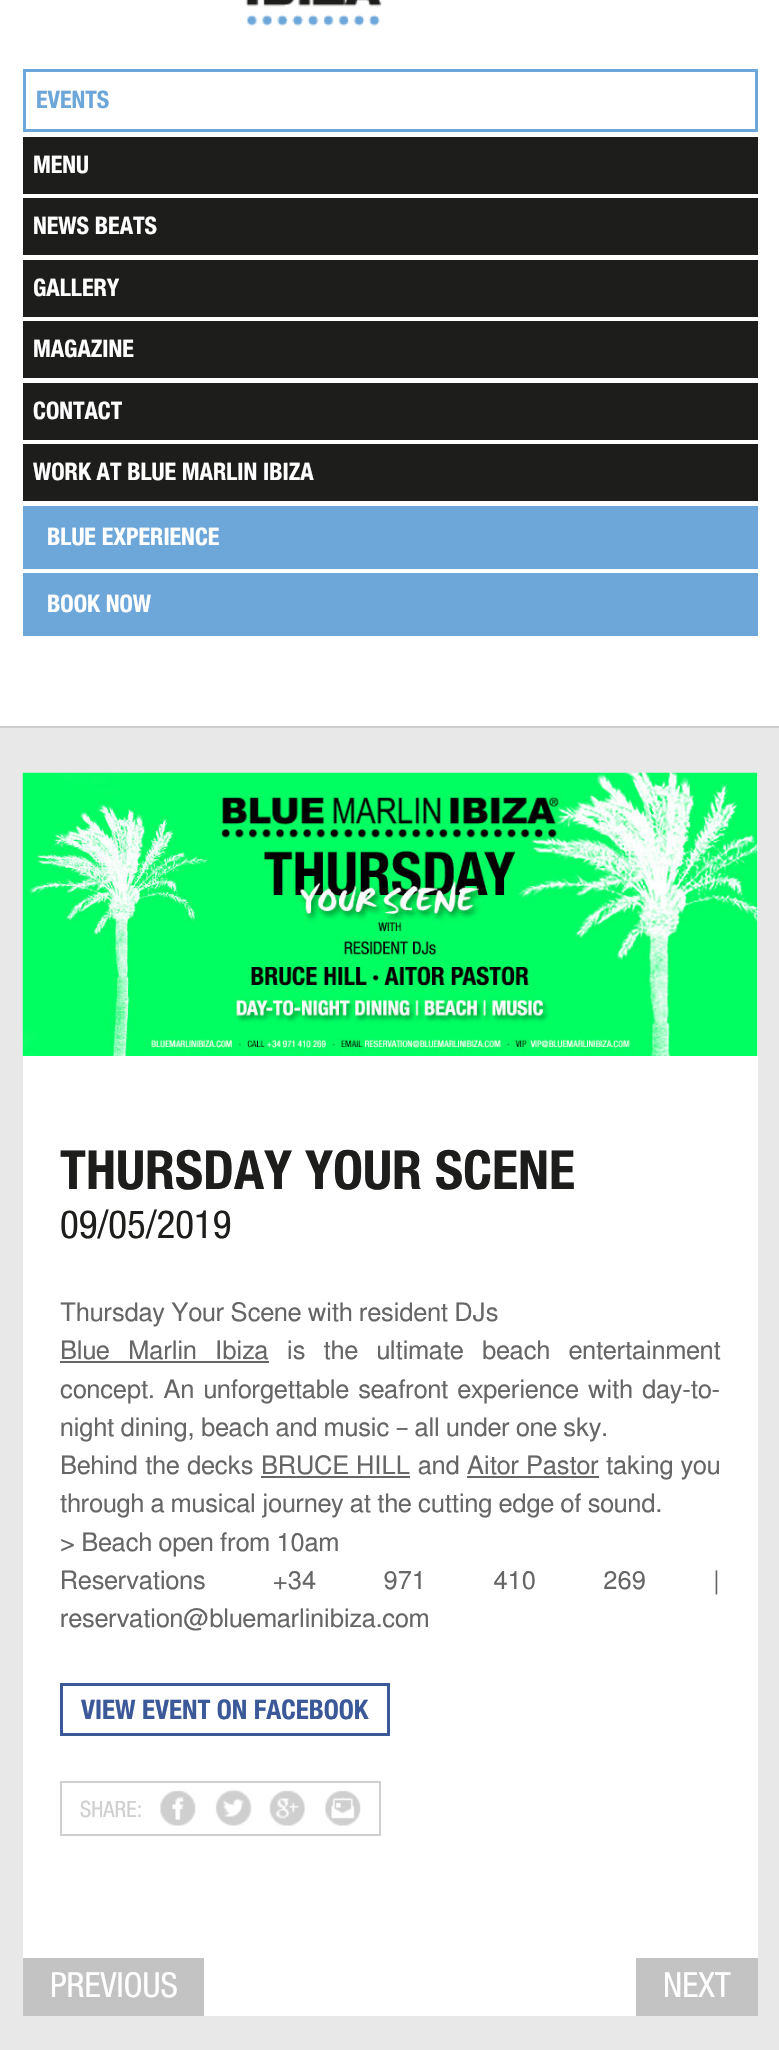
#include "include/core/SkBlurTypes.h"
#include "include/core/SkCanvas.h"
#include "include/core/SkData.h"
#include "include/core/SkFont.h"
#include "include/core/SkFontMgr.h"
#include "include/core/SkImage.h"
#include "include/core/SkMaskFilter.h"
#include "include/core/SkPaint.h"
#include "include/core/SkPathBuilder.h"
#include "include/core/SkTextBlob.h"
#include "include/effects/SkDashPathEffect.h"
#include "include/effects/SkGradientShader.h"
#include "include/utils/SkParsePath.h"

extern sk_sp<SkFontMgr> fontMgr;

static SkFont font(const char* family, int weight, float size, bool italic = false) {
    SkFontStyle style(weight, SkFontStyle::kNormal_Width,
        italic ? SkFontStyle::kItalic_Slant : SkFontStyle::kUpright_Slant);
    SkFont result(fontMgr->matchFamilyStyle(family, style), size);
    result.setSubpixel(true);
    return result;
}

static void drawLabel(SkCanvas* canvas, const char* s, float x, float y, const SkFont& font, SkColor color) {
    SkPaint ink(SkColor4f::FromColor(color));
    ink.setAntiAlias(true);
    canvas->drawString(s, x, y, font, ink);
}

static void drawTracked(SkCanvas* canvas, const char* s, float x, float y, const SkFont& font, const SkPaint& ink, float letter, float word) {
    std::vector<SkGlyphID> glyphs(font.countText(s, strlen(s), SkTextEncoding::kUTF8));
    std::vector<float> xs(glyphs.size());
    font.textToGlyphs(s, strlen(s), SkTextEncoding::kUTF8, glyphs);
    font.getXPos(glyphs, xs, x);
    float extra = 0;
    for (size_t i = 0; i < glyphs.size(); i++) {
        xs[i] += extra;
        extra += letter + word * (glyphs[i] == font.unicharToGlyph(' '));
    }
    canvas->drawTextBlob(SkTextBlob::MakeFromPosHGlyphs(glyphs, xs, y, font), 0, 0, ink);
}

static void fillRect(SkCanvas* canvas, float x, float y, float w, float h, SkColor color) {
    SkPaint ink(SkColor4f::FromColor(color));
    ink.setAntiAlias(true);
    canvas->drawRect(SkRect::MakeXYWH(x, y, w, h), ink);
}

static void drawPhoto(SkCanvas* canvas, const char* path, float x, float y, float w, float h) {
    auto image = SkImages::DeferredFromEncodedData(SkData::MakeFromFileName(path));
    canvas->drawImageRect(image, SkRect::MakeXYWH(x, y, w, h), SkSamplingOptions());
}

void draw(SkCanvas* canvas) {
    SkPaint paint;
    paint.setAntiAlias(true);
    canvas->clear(0xFFE8E8E8);
    fillRect(canvas, 0, 0, 779, 726, 0xFFFFFFFF);
    fillRect(canvas, 0, 726, 779, 2, 0xFFCFCFCF);
    drawPhoto(canvas, "assets/img1.png", 245, 0, 137, 26);
    paint.setStroke(true);
    paint.setStrokeWidth(3);
    paint.setColor(0xFF6DA6D8);
    canvas->drawRect(SkRect::MakeXYWH(24.5f, 70.5f, 732, 60), paint);
    SkFont font1 = font("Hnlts", 700, 24);
    drawLabel(canvas, "EVENTS", 36, 108, font1, 0xFF6DA6D8);
    fillRect(canvas, 23, 137, 735, 57, 0xFF1D1D1B);
    drawLabel(canvas, "MENU", 33, 173, font1, 0xFFFFFFFF);
    fillRect(canvas, 23, 198, 735, 57, 0xFF1D1D1B);
    drawLabel(canvas, "NEWS BEATS", 33, 234, font1, 0xFFFFFFFF);
    fillRect(canvas, 23, 260, 735, 57, 0xFF1D1D1B);
    drawLabel(canvas, "GALLERY", 33, 296, font1, 0xFFFFFFFF);
    fillRect(canvas, 23, 321, 735, 57, 0xFF1D1D1B);
    drawLabel(canvas, "MAGAZINE", 33, 357, font1, 0xFFFFFFFF);
    fillRect(canvas, 23, 383, 735, 57, 0xFF1D1D1B);
    drawLabel(canvas, "CONTACT", 33, 419, font1, 0xFFFFFFFF);
    fillRect(canvas, 23, 444, 735, 57, 0xFF1D1D1B);
    drawLabel(canvas, "WORK AT BLUE MARLIN IBIZA", 33, 480, font1, 0xFFFFFFFF);
    fillRect(canvas, 23, 506, 735, 63, 0xFF6DA6D8);
    drawLabel(canvas, "BLUE EXPERIENCE", 47, 545, font1, 0xFFFFFFFF);
    fillRect(canvas, 23, 573, 735, 63, 0xFF6DA6D8);
    drawLabel(canvas, "BOOK NOW", 47, 612, font1, 0xFFFFFFFF);
    fillRect(canvas, 23, 773, 735, 1243, 0xFFFFFFFF);
    drawPhoto(canvas, "assets/img2.png", 22, 772, 736, 284);
    SkFont font2 = font("Hnlts", 700, 54);
    drawLabel(canvas, "THURSDAY YOUR SCENE", 60, 1189, font2, 0xFF1D1D1B);
    SkFont font3 = font("Hnlts", 400, 39);
    drawLabel(canvas, "09/05/2019", 60, 1238, font3, 0xFF1D1D1B);
    SkFont font4 = font("FreeSans", 400, 25.5f);
    drawLabel(canvas, "Thursday Your Scene with resident DJs", 60, 1321, font4, 0xFF666666);
    paint.setStroke(false);
    paint.setColor(0xFF666666);
    drawTracked(canvas, "Blue Marlin Ibiza", 60, 1359, font4, paint, 0, 12);
    fillRect(canvas, 60, 1361, 209, 2, 0xFF666666);
    drawTracked(canvas, "is the ultimate beach entertainment", 287, 1359, font4, paint, 0, 12);
    drawTracked(canvas, "concept. An unforgettable seafront experience with day-to-", 60, 1398, font4, paint, 0, 2.75f);
    drawLabel(canvas, "night dining, beach and music – all under one sky.", 60, 1436, font4, 0xFF666666);
    drawTracked(canvas, "Behind the decks", 60, 1474, font4, paint, 0, 1);
    drawTracked(canvas, "BRUCE HILL", 261, 1474, font4, paint, 0, 1);
    fillRect(canvas, 261, 1476, 149, 2, 0xFF666666);
    drawLabel(canvas, "and", 418, 1474, font4, 0xFF666666);
    drawTracked(canvas, "Aitor Pastor", 467, 1474, font4, paint, 0, 1);
    fillRect(canvas, 467, 1476, 132, 2, 0xFF666666);
    drawTracked(canvas, "taking you", 606, 1474, font4, paint, 0, 1);
    drawLabel(canvas, "through a musical journey at the cutting edge of sound.", 60, 1512, font4, 0xFF666666);
    drawLabel(canvas, "> Beach open from 10am", 60, 1551, font4, 0xFF666666);
    drawTracked(canvas, "Reservations +34 971 410 269 |", 60, 1589, font4, paint, 0, 61);
    drawLabel(canvas, "reservation@bluemarlinibiza.com", 60, 1627, font4, 0xFF666666);
    paint.setStroke(true);
    paint.setColor(0xFF3B5998);
    canvas->drawRect(SkRect::MakeXYWH(61.5f, 1684.5f, 327, 50), paint);
    SkFont font5 = font("Hnlts", 700, 27);
    drawLabel(canvas, "VIEW EVENT ON FACEBOOK", 81, 1719, font5, 0xFF3B5998);
    paint.setStrokeWidth(2);
    paint.setColor(0xFFCFCFCF);
    canvas->drawRect(SkRect::MakeXYWH(61, 1782, 319, 53), paint);
    SkFont font6 = font("Hnlts", 400, 22.5f);
    drawLabel(canvas, "SHARE:", 80, 1817, font6, 0xFFCFCFCF);
    drawPhoto(canvas, "assets/img3.png", 159, 1790, 37, 36);
    drawPhoto(canvas, "assets/img4.png", 215, 1789, 37, 37);
    drawPhoto(canvas, "assets/img5.png", 269, 1790, 37, 36);
    drawPhoto(canvas, "assets/img6.png", 324, 1790, 37, 36);
    fillRect(canvas, 23, 1958, 181, 58, 0xFFC3C3C3);
    SkFont font7 = font("Hnlts", 400, 34.5f);
    drawLabel(canvas, "PREVIOUS", 50, 1997, font7, 0xFFFFFFFF);
    fillRect(canvas, 636, 1958, 122, 58, 0xFFC3C3C3);
    drawLabel(canvas, "NEXT", 663, 1997, font7, 0xFFFFFFFF);
}
